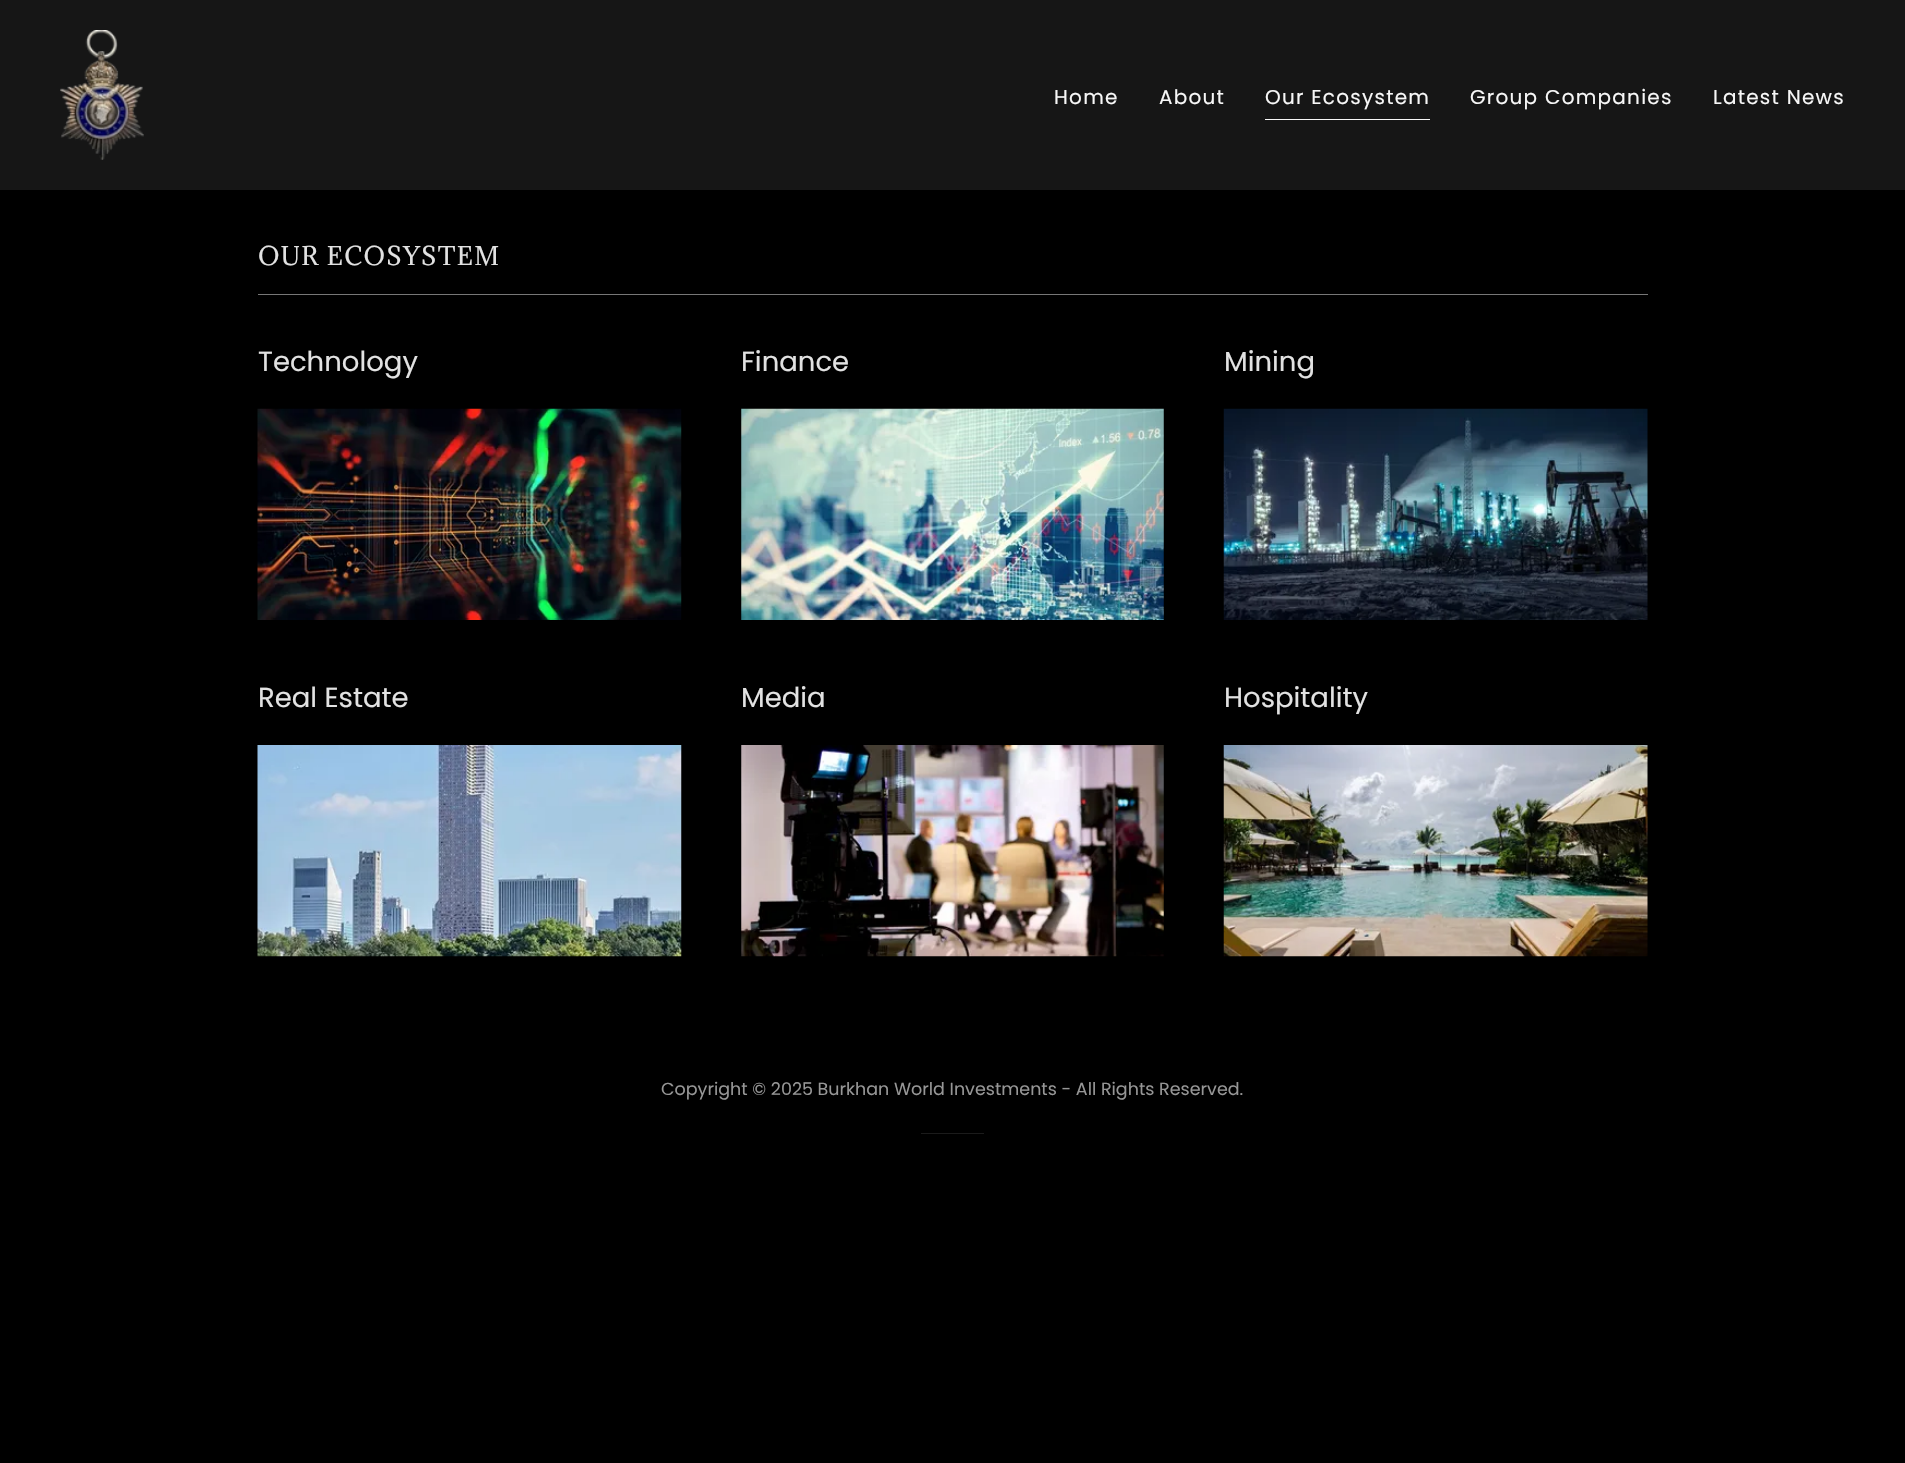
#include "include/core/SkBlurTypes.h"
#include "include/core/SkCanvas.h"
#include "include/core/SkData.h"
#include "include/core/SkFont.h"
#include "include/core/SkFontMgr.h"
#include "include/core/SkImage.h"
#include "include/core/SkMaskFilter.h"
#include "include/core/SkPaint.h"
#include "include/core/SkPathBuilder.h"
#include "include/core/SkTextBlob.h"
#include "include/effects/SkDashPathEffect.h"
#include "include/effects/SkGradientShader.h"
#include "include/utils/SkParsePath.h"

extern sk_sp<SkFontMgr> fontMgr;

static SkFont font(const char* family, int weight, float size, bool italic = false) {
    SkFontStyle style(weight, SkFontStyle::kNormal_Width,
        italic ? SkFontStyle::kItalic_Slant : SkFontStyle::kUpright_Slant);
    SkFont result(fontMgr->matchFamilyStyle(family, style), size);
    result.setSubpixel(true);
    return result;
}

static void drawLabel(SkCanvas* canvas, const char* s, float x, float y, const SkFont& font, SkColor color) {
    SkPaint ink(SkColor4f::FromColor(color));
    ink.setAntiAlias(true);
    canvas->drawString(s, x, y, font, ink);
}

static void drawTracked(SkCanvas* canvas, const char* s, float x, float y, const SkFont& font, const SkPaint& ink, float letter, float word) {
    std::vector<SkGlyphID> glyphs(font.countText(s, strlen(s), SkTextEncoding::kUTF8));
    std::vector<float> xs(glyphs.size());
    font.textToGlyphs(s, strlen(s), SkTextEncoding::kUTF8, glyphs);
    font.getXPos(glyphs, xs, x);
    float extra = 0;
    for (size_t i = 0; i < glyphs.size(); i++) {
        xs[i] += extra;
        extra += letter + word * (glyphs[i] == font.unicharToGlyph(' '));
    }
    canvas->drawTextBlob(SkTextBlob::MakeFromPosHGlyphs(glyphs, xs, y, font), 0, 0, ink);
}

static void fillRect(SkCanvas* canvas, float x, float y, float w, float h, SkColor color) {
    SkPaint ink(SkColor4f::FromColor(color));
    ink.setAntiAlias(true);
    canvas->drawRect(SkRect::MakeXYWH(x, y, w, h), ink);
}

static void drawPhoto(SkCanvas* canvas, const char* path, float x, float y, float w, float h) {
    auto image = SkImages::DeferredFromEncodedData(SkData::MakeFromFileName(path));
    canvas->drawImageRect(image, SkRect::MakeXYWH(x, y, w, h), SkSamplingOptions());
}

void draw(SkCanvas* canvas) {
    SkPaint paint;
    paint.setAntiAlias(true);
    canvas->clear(0xFF000000);
    fillRect(canvas, 0, 0, 1905, 190, 0xFF161616);
    drawPhoto(canvas, "assets/img1.png", 60, 30, 84, 130);
    SkFont font1 = font("Poppins", 400, 20);
    paint.setColor(0xFFF7F7F7);
    drawTracked(canvas, "Home", 1054, 104, font1, paint, 1.25f, 0);
    drawTracked(canvas, "About", 1159, 104, font1, paint, 1.25f, 0);
    fillRect(canvas, 1265, 119, 165, 1, 0xFFF7F7F7);
    drawTracked(canvas, "Our Ecosystem", 1265, 104, font1, paint, 1.25f, 0);
    drawTracked(canvas, "Group Companies", 1470, 104, font1, paint, 1.25f, 0);
    drawTracked(canvas, "Latest News", 1713, 104, font1, paint, 1.25f, 0);
    SkFont font2 = font("Adamina", 400, 23.75f);
    paint.setColor(0xFFE2E2E2);
    drawTracked(canvas, "OUR ECOSYSTEM", 258, 265, font2, paint, 1.25f, 0);
    fillRect(canvas, 258, 294, 1390, 1, 0xFF777777);
    SkFont font3 = font("Poppins", 400, 27.5f);
    drawLabel(canvas, "Technology", 258, 371, font3, 0xFFE2E2E2);
    drawPhoto(canvas, "assets/img2.png", 257, 408, 425, 212);
    drawLabel(canvas, "Finance", 741, 371, font3, 0xFFE2E2E2);
    drawPhoto(canvas, "assets/img3.png", 741, 408, 423, 212);
    drawLabel(canvas, "Mining", 1224, 371, font3, 0xFFE2E2E2);
    drawPhoto(canvas, "assets/img4.png", 1223, 408, 425, 212);
    drawLabel(canvas, "Real Estate", 258, 707, font3, 0xFFE2E2E2);
    drawPhoto(canvas, "assets/img5.png", 257, 745, 425, 212);
    drawLabel(canvas, "Media", 741, 707, font3, 0xFFE2E2E2);
    drawPhoto(canvas, "assets/img6.png", 741, 745, 423, 212);
    drawLabel(canvas, "Hospitality", 1224, 707, font3, 0xFFE2E2E2);
    drawPhoto(canvas, "assets/img7.png", 1223, 745, 425, 212);
    SkFont font4 = font("Poppins", 400, 17.5f);
    drawLabel(canvas, "Copyright © 2025 Burkhan World Investments - All Rights Reserved.", 661, 1095, font4, 0xFF969696);
    fillRect(canvas, 921, 1133, 63, 1, 0xFF1B1B1B);
}
